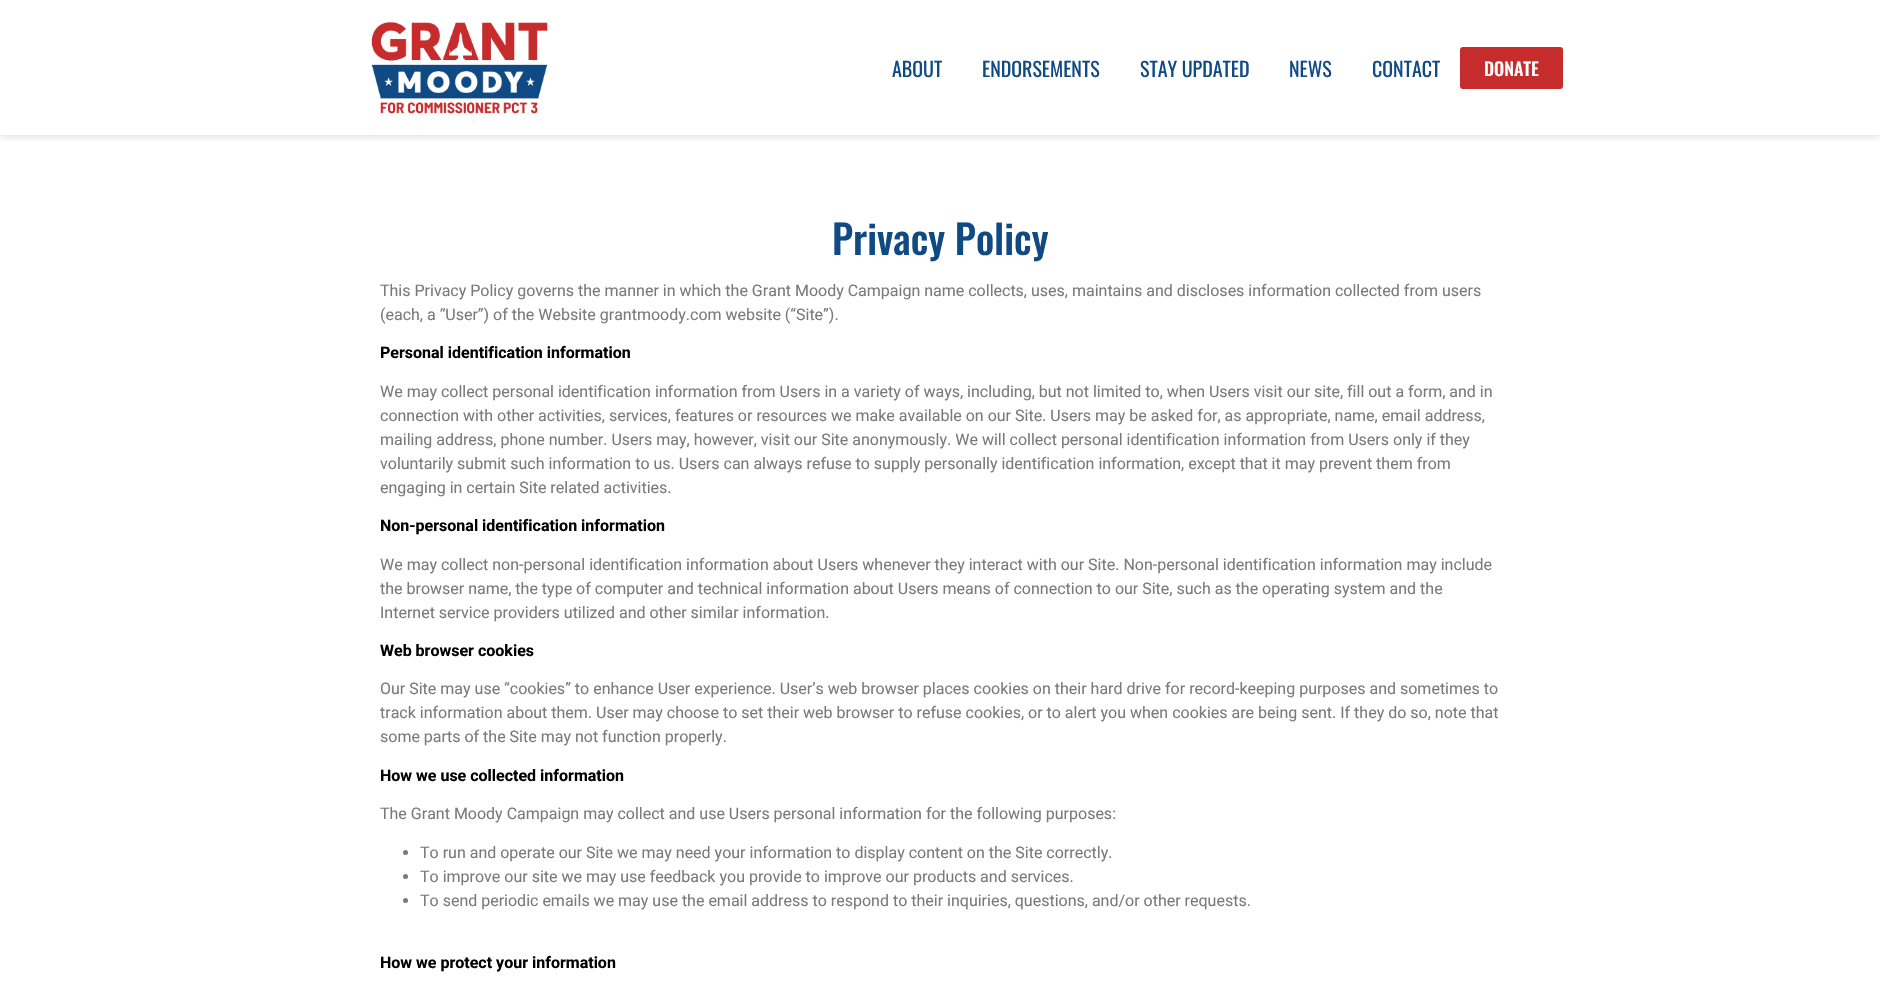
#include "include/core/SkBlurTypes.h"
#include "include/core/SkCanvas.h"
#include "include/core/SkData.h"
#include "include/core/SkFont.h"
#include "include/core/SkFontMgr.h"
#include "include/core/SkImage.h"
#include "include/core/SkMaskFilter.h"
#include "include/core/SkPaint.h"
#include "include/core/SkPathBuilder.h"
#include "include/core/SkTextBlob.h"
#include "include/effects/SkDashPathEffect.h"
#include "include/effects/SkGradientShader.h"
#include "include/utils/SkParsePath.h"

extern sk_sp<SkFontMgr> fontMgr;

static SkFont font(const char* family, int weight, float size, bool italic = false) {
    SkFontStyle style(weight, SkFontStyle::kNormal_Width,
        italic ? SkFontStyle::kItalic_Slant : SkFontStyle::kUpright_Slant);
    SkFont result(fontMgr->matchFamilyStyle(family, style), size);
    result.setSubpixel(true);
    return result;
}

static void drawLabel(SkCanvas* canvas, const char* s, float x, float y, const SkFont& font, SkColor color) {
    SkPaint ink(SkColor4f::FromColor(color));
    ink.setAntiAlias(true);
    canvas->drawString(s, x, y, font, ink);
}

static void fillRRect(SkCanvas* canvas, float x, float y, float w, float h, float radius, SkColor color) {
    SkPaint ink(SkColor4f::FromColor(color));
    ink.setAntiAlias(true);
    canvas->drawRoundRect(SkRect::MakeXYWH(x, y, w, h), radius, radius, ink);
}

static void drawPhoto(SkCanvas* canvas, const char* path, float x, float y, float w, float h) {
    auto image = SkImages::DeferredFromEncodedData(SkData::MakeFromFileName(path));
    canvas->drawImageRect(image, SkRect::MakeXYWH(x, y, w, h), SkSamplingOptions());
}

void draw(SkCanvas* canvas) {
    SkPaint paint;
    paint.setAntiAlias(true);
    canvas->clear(0xFFFFFFFF);
    canvas->save();
    canvas->clipRect(SkRect::MakeXYWH(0, 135, 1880, 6));
    paint.setColor(0x2E000000);
    paint.setMaskFilter(SkMaskFilter::MakeBlur(kNormal_SkBlurStyle, 5));
    canvas->drawRect(SkRect::MakeXYWH(0, 0, 1880, 135), paint);
    paint.setMaskFilter(nullptr);
    canvas->restore();
    drawPhoto(canvas, "assets/img1.png", 371, 22, 177, 92);
    SkFont font1 = font("Oswald", 400, 20);
    drawLabel(canvas, "ABOUT", 892, 77, font1, 0xFF104A84);
    drawLabel(canvas, "ENDORSEMENTS", 982, 77, font1, 0xFF104A84);
    drawLabel(canvas, "STAY UPDATED", 1140, 77, font1, 0xFF104A84);
    drawLabel(canvas, "NEWS", 1289, 77, font1, 0xFF104A84);
    drawLabel(canvas, "CONTACT", 1372, 77, font1, 0xFF104A84);
    fillRRect(canvas, 1460, 47, 103, 42, 3, 0xFFC62C2C);
    SkFont font2 = font("Oswald", 500, 18);
    drawLabel(canvas, "DONATE", 1484, 76, font2, 0xFFFFFFFF);
    SkFont font3 = font("Oswald", 500, 40);
    drawLabel(canvas, "Privacy Policy", 832, 255, font3, 0xFF104A84);
    SkFont font4 = font("Roboto", 400, 16);
    drawLabel(canvas, "This Privacy Policy governs the manner in which the Grant Moody Campaign name collects, uses, maintains and discloses information collected from users", 380, 296, font4, 0xFF7A7A7A);
    drawLabel(canvas, "(each, a “User”) of the Website grantmoody.com website (“Site”).", 380, 320, font4, 0xFF7A7A7A);
    SkFont font5 = font("Roboto", 700, 16);
    drawLabel(canvas, "Personal identification information", 380, 358, font5, 0xFF000000);
    drawLabel(canvas, "We may collect personal identification information from Users in a variety of ways, including, but not limited to, when Users visit our site, fill out a form, and in", 380, 397, font4, 0xFF7A7A7A);
    drawLabel(canvas, "connection with other activities, services, features or resources we make available on our Site. Users may be asked for, as appropriate, name, email address,", 380, 421, font4, 0xFF7A7A7A);
    drawLabel(canvas, "mailing address, phone number. Users may, however, visit our Site anonymously. We will collect personal identification information from Users only if they", 380, 445, font4, 0xFF7A7A7A);
    drawLabel(canvas, "voluntarily submit such information to us. Users can always refuse to supply personally identification information, except that it may prevent them from", 380, 469, font4, 0xFF7A7A7A);
    drawLabel(canvas, "engaging in certain Site related activities.", 380, 493, font4, 0xFF7A7A7A);
    drawLabel(canvas, "Non-personal identification information", 380, 531, font5, 0xFF000000);
    drawLabel(canvas, "We may collect non-personal identification information about Users whenever they interact with our Site. Non-personal identification information may include", 380, 570, font4, 0xFF7A7A7A);
    drawLabel(canvas, "the browser name, the type of computer and technical information about Users means of connection to our Site, such as the operating system and the", 380, 594, font4, 0xFF7A7A7A);
    drawLabel(canvas, "Internet service providers utilized and other similar information.", 380, 618, font4, 0xFF7A7A7A);
    drawLabel(canvas, "Web browser cookies", 380, 656, font5, 0xFF000000);
    drawLabel(canvas, "Our Site may use “cookies” to enhance User experience. User’s web browser places cookies on their hard drive for record-keeping purposes and sometimes to", 380, 694, font4, 0xFF7A7A7A);
    drawLabel(canvas, "track information about them. User may choose to set their web browser to refuse cookies, or to alert you when cookies are being sent. If they do so, note that", 380, 718, font4, 0xFF7A7A7A);
    drawLabel(canvas, "some parts of the Site may not function properly.", 380, 742, font4, 0xFF7A7A7A);
    drawLabel(canvas, "How we use collected information", 380, 781, font5, 0xFF000000);
    drawLabel(canvas, "The Grant Moody Campaign may collect and use Users personal information for the following purposes:", 380, 819, font4, 0xFF7A7A7A);
    paint.setColor(0xFF7A7A7A);
    canvas->drawCircle(405.5f, 852.5f, 2.5f, paint);
    drawLabel(canvas, "To run and operate our Site we may need your information to display content on the Site correctly.", 420, 858, font4, 0xFF7A7A7A);
    canvas->drawCircle(405.5f, 876.5f, 2.5f, paint);
    drawLabel(canvas, "To improve our site we may use feedback you provide to improve our products and services.", 420, 882, font4, 0xFF7A7A7A);
    canvas->drawCircle(405.5f, 900.5f, 2.5f, paint);
    drawLabel(canvas, "To send periodic emails we may use the email address to respond to their inquiries, questions, and/or other requests.", 420, 906, font4, 0xFF7A7A7A);
    drawLabel(canvas, "How we protect your information", 380, 968, font5, 0xFF000000);
}
